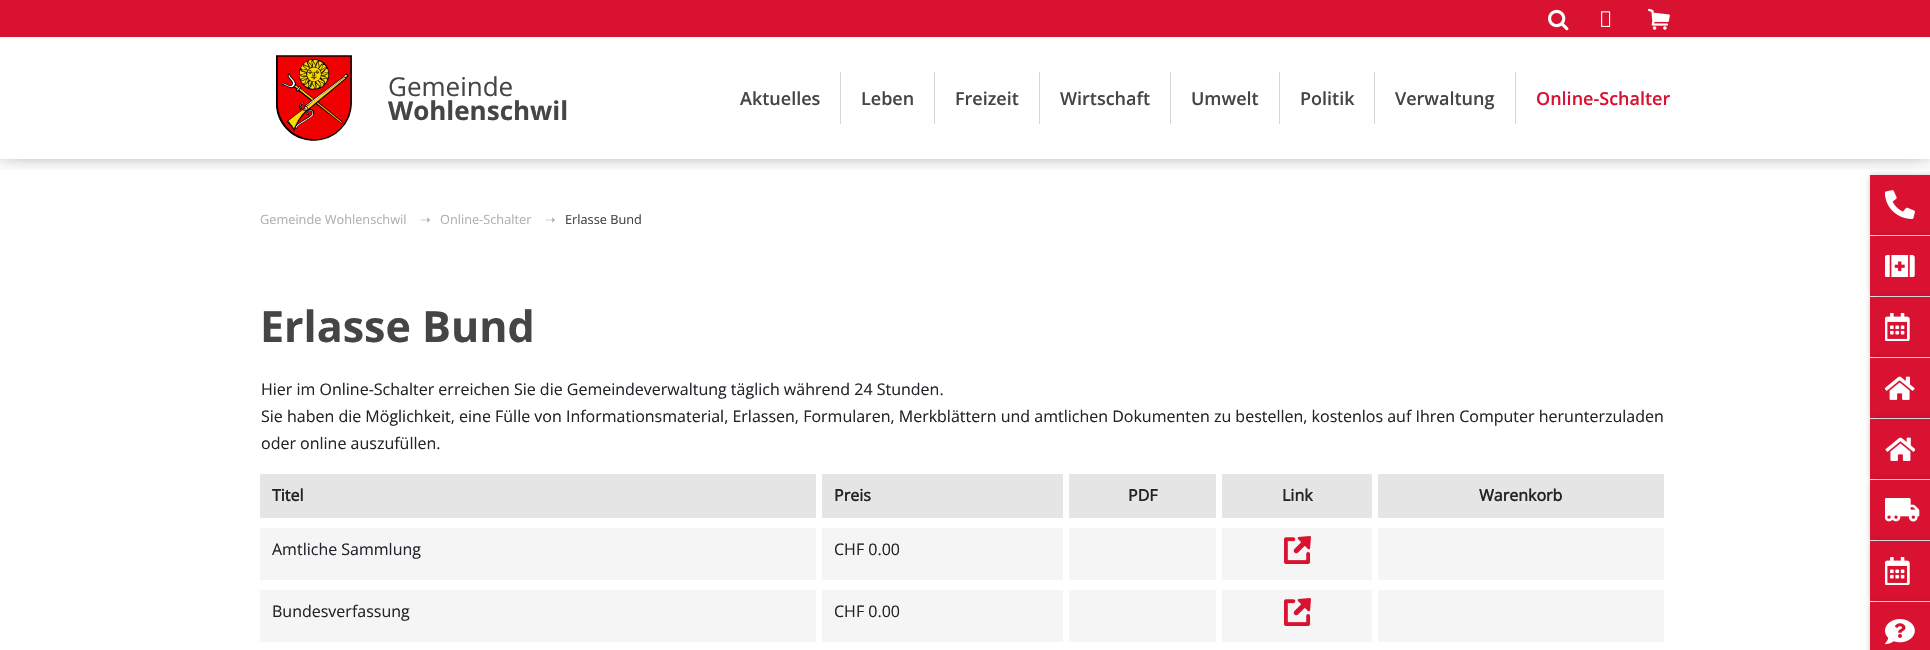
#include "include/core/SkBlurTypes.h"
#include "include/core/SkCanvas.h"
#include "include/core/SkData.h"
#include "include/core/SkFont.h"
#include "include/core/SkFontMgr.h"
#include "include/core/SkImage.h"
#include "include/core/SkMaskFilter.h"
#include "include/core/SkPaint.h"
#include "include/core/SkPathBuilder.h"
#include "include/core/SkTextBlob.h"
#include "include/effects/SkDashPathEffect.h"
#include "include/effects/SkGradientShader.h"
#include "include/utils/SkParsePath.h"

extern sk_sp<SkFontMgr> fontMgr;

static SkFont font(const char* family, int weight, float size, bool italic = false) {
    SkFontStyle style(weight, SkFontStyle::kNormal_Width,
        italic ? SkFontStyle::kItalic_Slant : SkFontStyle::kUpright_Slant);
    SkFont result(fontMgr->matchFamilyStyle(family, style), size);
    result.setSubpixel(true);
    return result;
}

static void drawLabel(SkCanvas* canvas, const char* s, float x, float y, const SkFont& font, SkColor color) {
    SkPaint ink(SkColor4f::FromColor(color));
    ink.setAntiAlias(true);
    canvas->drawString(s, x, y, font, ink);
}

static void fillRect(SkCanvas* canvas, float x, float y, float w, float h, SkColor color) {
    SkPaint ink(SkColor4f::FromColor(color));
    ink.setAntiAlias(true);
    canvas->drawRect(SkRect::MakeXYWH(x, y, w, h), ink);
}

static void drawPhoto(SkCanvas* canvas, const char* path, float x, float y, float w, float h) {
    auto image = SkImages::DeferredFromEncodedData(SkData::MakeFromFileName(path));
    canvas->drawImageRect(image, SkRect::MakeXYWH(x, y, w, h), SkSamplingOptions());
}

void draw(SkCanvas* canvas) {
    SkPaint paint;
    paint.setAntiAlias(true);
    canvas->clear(0xFFFFFFFF);
    canvas->save();
    canvas->clipRect(SkRect::MakeXYWH(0, 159, 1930, 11));
    paint.setColor(0xBF000000);
    paint.setMaskFilter(SkMaskFilter::MakeBlur(kNormal_SkBlurStyle, 11));
    canvas->drawRect(SkRect::MakeXYWH(0, -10, 1930, 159), paint);
    paint.setMaskFilter(nullptr);
    canvas->restore();
    fillRect(canvas, 0, 0, 1930, 37, 0xFFD91231);
    drawPhoto(canvas, "assets/img1.png", 1548, 9, 21, 22);
    drawPhoto(canvas, "assets/img2.png", 1601, 11, 10, 16);
    drawPhoto(canvas, "assets/img3.png", 1648, 8, 22, 22);
    drawPhoto(canvas, "assets/img4.png", 276, 55, 76, 86);
    SkFont font1 = font("Open Sans", 400, 26);
    drawLabel(canvas, "Gemeinde", 388, 96, font1, 0xFF454545);
    SkFont font2 = font("Open Sans", 700, 26);
    drawLabel(canvas, "Wohlenschwil", 388, 120, font2, 0xFF454545);
    fillRect(canvas, 840, 72, 1, 52, 0xFFD6D6D6);
    SkFont font3 = font("Open Sans", 600, 18);
    drawLabel(canvas, "Aktuelles", 740, 105, font3, 0xFF454545);
    fillRect(canvas, 934, 72, 1, 52, 0xFFD6D6D6);
    drawLabel(canvas, "Leben", 861, 105, font3, 0xFF454545);
    fillRect(canvas, 1039, 72, 1, 52, 0xFFD6D6D6);
    drawLabel(canvas, "Freizeit", 955, 105, font3, 0xFF454545);
    fillRect(canvas, 1170, 72, 1, 52, 0xFFD6D6D6);
    drawLabel(canvas, "Wirtschaft", 1060, 105, font3, 0xFF454545);
    fillRect(canvas, 1279, 72, 1, 52, 0xFFD6D6D6);
    drawLabel(canvas, "Umwelt", 1191, 105, font3, 0xFF454545);
    fillRect(canvas, 1374, 72, 1, 52, 0xFFD6D6D6);
    drawLabel(canvas, "Politik", 1300, 105, font3, 0xFF454545);
    fillRect(canvas, 1515, 72, 1, 52, 0xFFD6D6D6);
    drawLabel(canvas, "Verwaltung", 1395, 105, font3, 0xFF454545);
    drawLabel(canvas, "Online-Schalter", 1536, 105, font3, 0xFFD91231);
    paint.setColor(0x40000000);
    paint.setMaskFilter(SkMaskFilter::MakeBlur(kNormal_SkBlurStyle, 3.5f));
    canvas->drawRect(SkRect::MakeXYWH(1871, 176, 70, 58), paint);
    paint.setMaskFilter(nullptr);
    fillRect(canvas, 1870, 175, 60, 60, 0xFFD91231);
    drawPhoto(canvas, "assets/img5.png", 1885, 190, 30, 29);
    paint.setMaskFilter(SkMaskFilter::MakeBlur(kNormal_SkBlurStyle, 3.5f));
    canvas->drawRect(SkRect::MakeXYWH(1871, 237, 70, 58), paint);
    paint.setMaskFilter(nullptr);
    fillRect(canvas, 1870, 236, 60, 60, 0xFFD91231);
    drawPhoto(canvas, "assets/img6.png", 1885, 255, 30, 22);
    paint.setMaskFilter(SkMaskFilter::MakeBlur(kNormal_SkBlurStyle, 3.5f));
    canvas->drawRect(SkRect::MakeXYWH(1871, 298, 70, 58), paint);
    paint.setMaskFilter(nullptr);
    fillRect(canvas, 1870, 297, 60, 60, 0xFFD91231);
    drawPhoto(canvas, "assets/img7.png", 1885, 313, 25, 28);
    paint.setMaskFilter(SkMaskFilter::MakeBlur(kNormal_SkBlurStyle, 3.5f));
    canvas->drawRect(SkRect::MakeXYWH(1871, 359, 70, 58), paint);
    paint.setMaskFilter(nullptr);
    fillRect(canvas, 1870, 358, 60, 60, 0xFFD91231);
    drawPhoto(canvas, "assets/img8.png", 1885, 376, 30, 24);
    paint.setMaskFilter(SkMaskFilter::MakeBlur(kNormal_SkBlurStyle, 3.5f));
    canvas->drawRect(SkRect::MakeXYWH(1871, 420, 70, 58), paint);
    paint.setMaskFilter(nullptr);
    fillRect(canvas, 1870, 419, 60, 60, 0xFFD91231);
    drawPhoto(canvas, "assets/img9.png", 1885, 437, 30, 24);
    paint.setMaskFilter(SkMaskFilter::MakeBlur(kNormal_SkBlurStyle, 3.5f));
    canvas->drawRect(SkRect::MakeXYWH(1871, 481, 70, 58), paint);
    paint.setMaskFilter(nullptr);
    fillRect(canvas, 1870, 480, 60, 60, 0xFFD91231);
    drawPhoto(canvas, "assets/img10.png", 1885, 498, 35, 24);
    paint.setMaskFilter(SkMaskFilter::MakeBlur(kNormal_SkBlurStyle, 3.5f));
    canvas->drawRect(SkRect::MakeXYWH(1871, 542, 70, 58), paint);
    paint.setMaskFilter(nullptr);
    fillRect(canvas, 1870, 541, 60, 60, 0xFFD91231);
    drawPhoto(canvas, "assets/img11.png", 1885, 557, 25, 28);
    paint.setMaskFilter(SkMaskFilter::MakeBlur(kNormal_SkBlurStyle, 3.5f));
    canvas->drawRect(SkRect::MakeXYWH(1871, 603, 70, 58), paint);
    paint.setMaskFilter(nullptr);
    fillRect(canvas, 1870, 602, 60, 48, 0xFFD91231);
    drawPhoto(canvas, "assets/img12.png", 1885, 619, 30, 26);
    SkFont font4 = font("Open Sans", 400, 12.75f);
    drawLabel(canvas, "Gemeinde Wohlenschwil", 260, 224, font4, 0xFFB1B1B1);
    SkFont font5 = font("DejaVu Sans", 400, 12.75f);
    drawLabel(canvas, "➝", 420, 224, font5, 0xFFB1B1B1);
    drawLabel(canvas, "Online-Schalter", 440, 224, font4, 0xFFB1B1B1);
    drawLabel(canvas, "➝", 545, 224, font5, 0xFFB1B1B1);
    drawLabel(canvas, "Erlasse Bund", 565, 224, font4, 0xFF454545);
    SkFont font6 = font("Open Sans", 700, 43);
    drawLabel(canvas, "Erlasse Bund", 260, 342, font6, 0xFF454545);
    SkFont font7 = font("Open Sans", 400, 16);
    drawLabel(canvas, "Hier im Online-Schalter erreichen Sie die Gemeindeverwaltung täglich während 24 Stunden.", 261, 395, font7, 0xFF212529);
    drawLabel(canvas, "Sie haben die Möglichkeit, eine Fülle von Informationsmaterial, Erlassen, Formularen, Merkblättern und amtlichen Dokumenten zu bestellen, kostenlos auf Ihren Computer herunterzuladen", 261, 422, font7, 0xFF212529);
    drawLabel(canvas, "oder online auszufüllen.", 261, 449, font7, 0xFF212529);
    fillRect(canvas, 260, 474, 556, 44, 0xFFE5E5E5);
    SkFont font8 = font("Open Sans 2", 700, 16);
    drawLabel(canvas, "Titel", 272, 501, font8, 0xFF212529);
    fillRect(canvas, 822, 474, 241, 44, 0xFFE5E5E5);
    drawLabel(canvas, "Preis", 834, 501, font8, 0xFF212529);
    fillRect(canvas, 1069, 474, 147, 44, 0xFFE5E5E5);
    drawLabel(canvas, "PDF", 1128, 501, font8, 0xFF212529);
    fillRect(canvas, 1222, 474, 150, 44, 0xFFE5E5E5);
    drawLabel(canvas, "Link", 1282, 501, font8, 0xFF212529);
    fillRect(canvas, 1378, 474, 286, 44, 0xFFE5E5E5);
    drawLabel(canvas, "Warenkorb", 1479, 501, font8, 0xFF212529);
    fillRect(canvas, 260, 528, 556, 52, 0xFFF5F5F5);
    drawLabel(canvas, "Amtliche Sammlung", 272, 555, font7, 0xFF212529);
    fillRect(canvas, 822, 528, 241, 52, 0xFFF5F5F5);
    drawLabel(canvas, "CHF 0.00", 834, 555, font7, 0xFF212529);
    fillRect(canvas, 1069, 528, 147, 52, 0xFFF5F5F5);
    fillRect(canvas, 1222, 528, 150, 52, 0xFFF5F5F5);
    drawPhoto(canvas, "assets/img13.png", 1284, 536, 27, 28);
    fillRect(canvas, 1378, 528, 286, 52, 0xFFF5F5F5);
    fillRect(canvas, 260, 590, 556, 52, 0xFFF5F5F5);
    drawLabel(canvas, "Bundesverfassung", 272, 617, font7, 0xFF212529);
    fillRect(canvas, 822, 590, 241, 52, 0xFFF5F5F5);
    drawLabel(canvas, "CHF 0.00", 834, 617, font7, 0xFF212529);
    fillRect(canvas, 1069, 590, 147, 52, 0xFFF5F5F5);
    fillRect(canvas, 1222, 590, 150, 52, 0xFFF5F5F5);
    drawPhoto(canvas, "assets/img13.png", 1284, 598, 27, 28);
    fillRect(canvas, 1378, 590, 286, 52, 0xFFF5F5F5);
}
